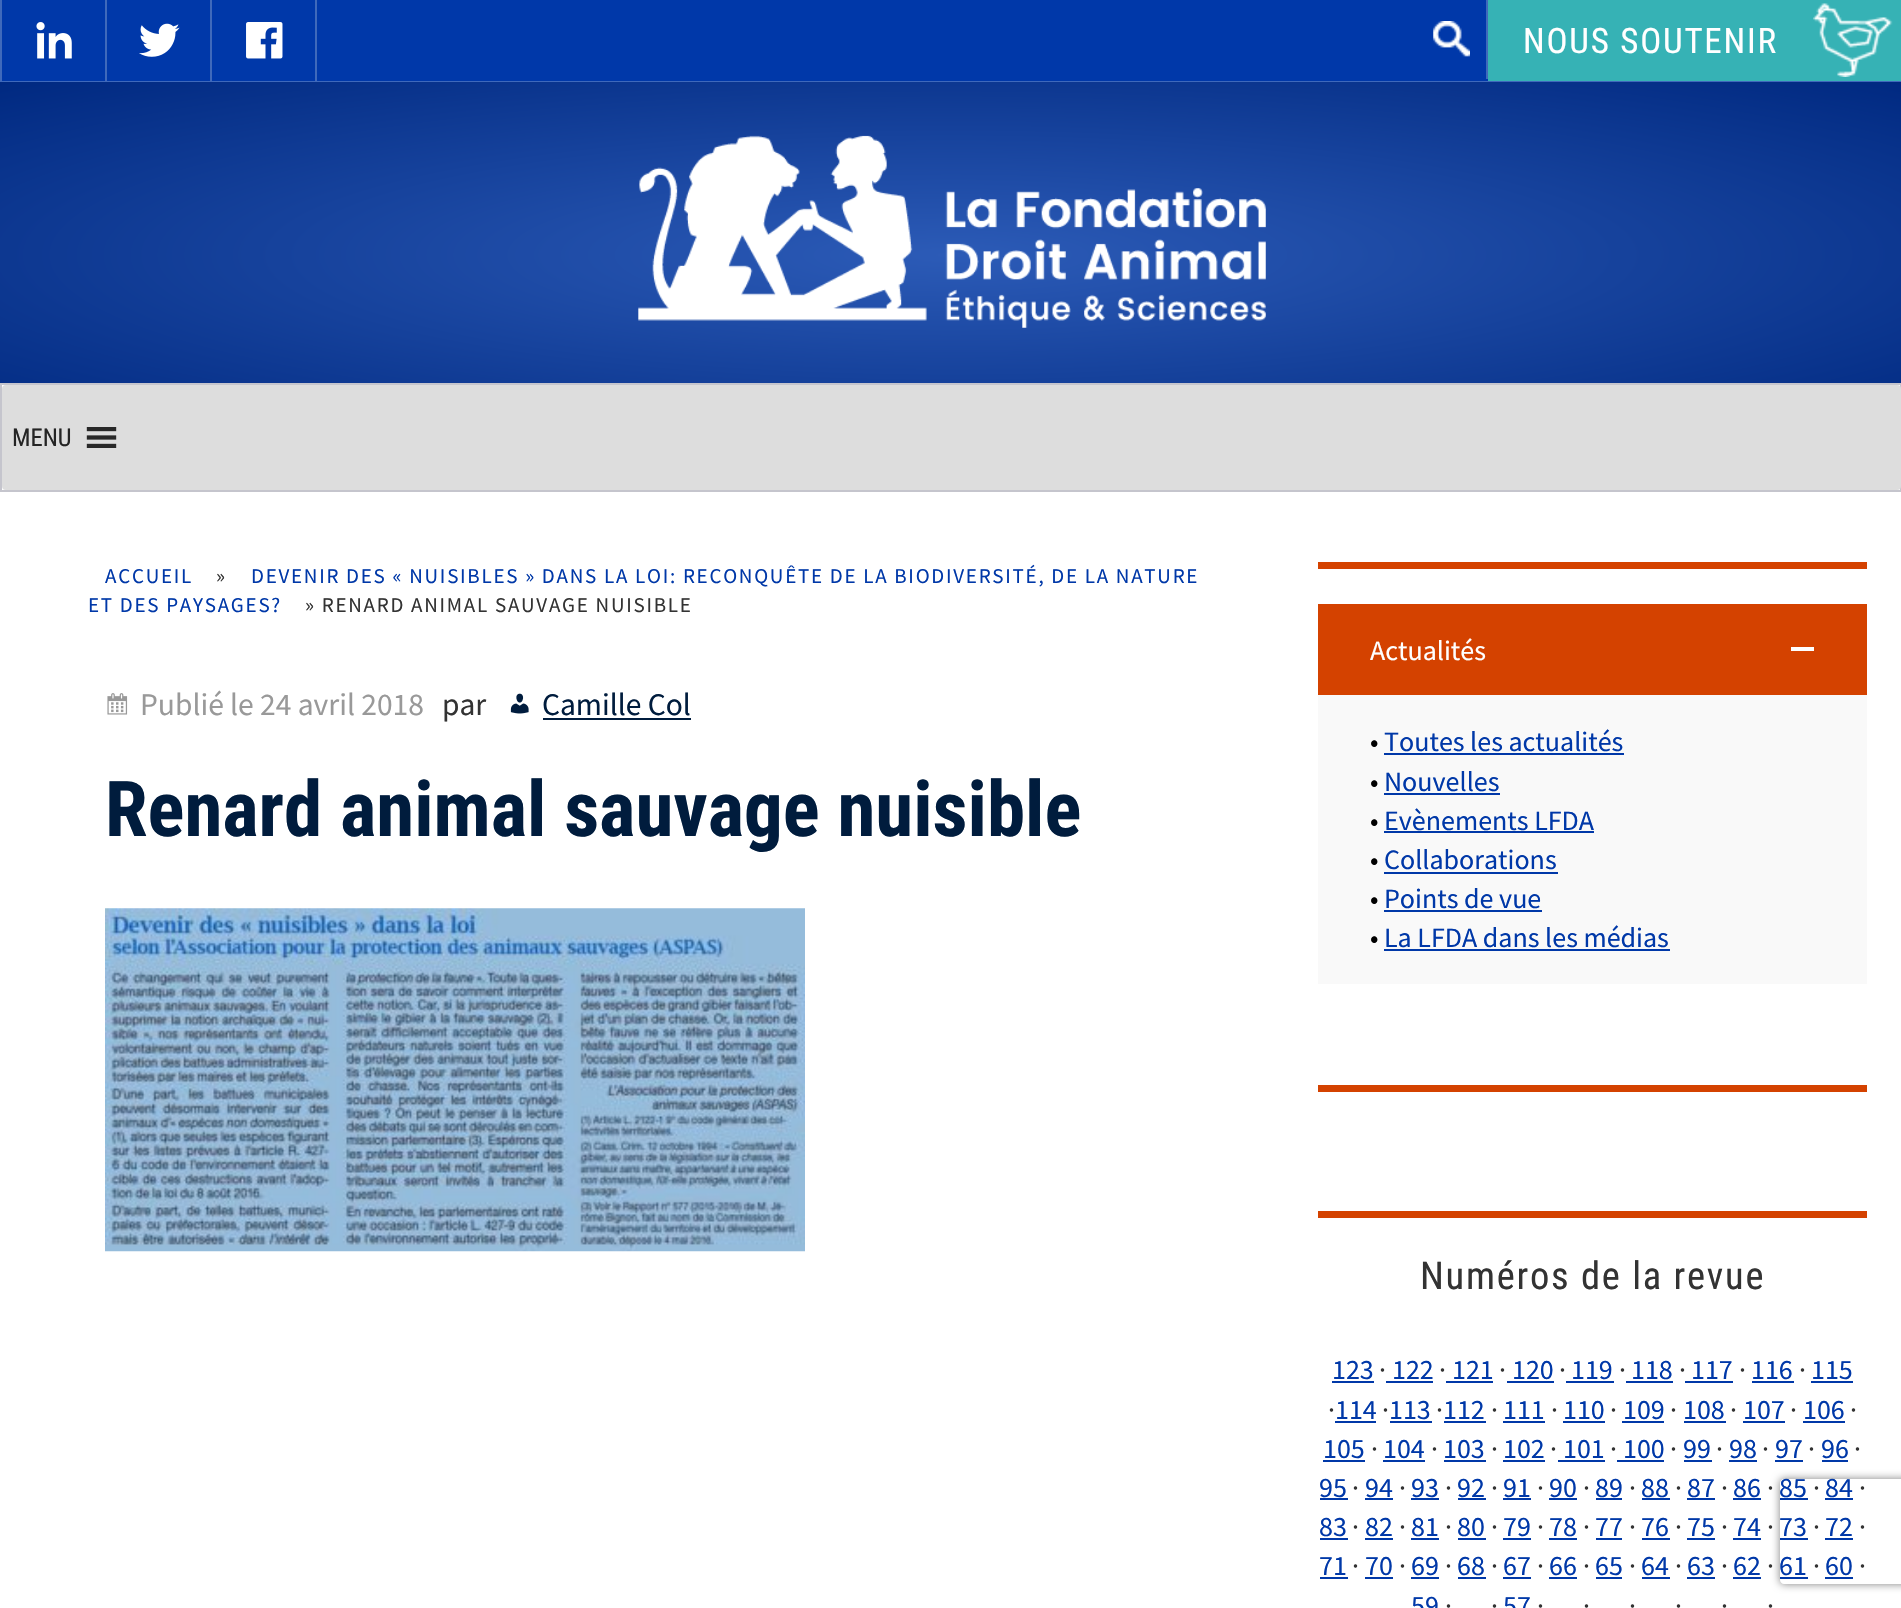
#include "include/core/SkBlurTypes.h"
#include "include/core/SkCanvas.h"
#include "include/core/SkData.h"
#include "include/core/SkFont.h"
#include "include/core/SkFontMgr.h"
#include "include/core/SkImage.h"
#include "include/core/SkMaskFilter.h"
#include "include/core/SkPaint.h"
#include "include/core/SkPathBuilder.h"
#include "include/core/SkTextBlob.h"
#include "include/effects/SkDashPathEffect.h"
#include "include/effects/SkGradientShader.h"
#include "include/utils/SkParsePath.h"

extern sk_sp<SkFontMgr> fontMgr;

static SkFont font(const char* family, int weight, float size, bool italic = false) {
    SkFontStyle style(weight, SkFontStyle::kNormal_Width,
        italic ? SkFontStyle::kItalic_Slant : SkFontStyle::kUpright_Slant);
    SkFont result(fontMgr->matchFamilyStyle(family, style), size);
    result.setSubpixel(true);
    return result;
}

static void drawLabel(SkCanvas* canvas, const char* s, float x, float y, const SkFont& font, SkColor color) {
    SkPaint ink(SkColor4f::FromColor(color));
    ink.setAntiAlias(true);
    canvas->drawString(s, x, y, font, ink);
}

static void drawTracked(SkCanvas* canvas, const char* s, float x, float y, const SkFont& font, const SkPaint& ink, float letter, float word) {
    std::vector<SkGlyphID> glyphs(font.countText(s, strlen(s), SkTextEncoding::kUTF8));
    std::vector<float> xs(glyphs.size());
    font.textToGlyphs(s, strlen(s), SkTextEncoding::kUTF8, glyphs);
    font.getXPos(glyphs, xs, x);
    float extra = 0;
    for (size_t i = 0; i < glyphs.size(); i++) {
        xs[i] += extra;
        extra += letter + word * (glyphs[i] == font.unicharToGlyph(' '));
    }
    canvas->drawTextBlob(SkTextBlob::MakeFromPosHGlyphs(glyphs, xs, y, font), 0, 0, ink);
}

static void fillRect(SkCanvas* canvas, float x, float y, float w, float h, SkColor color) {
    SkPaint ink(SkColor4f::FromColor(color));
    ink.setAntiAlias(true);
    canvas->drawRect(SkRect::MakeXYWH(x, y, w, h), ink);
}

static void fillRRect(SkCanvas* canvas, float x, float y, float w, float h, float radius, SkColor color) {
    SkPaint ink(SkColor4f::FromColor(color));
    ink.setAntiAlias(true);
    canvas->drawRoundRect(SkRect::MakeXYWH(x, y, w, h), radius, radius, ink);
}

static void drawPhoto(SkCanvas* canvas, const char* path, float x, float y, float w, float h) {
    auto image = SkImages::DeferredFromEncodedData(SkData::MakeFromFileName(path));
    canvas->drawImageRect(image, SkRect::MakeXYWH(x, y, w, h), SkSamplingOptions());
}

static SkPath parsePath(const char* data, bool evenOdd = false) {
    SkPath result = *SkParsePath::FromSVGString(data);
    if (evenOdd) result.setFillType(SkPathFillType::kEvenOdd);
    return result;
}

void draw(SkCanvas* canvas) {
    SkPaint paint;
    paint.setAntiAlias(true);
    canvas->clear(0xFFFFFFFF);
    fillRect(canvas, 2, 0, 1486, 81, 0xFF0038A9);
    fillRect(canvas, 0, 81, 1901, 1, 0xFF3F69BB);
    fillRect(canvas, 0, 0, 2, 81, 0xFF3F69BB);
    fillRect(canvas, 105, 0, 2, 81, 0xFF3F69BB);
    drawPhoto(canvas, "assets/img1.png", 36, 22, 36, 37);
    fillRect(canvas, 210, 0, 2, 81, 0xFF3F69BB);
    drawPhoto(canvas, "assets/img2.png", 139, 23, 41, 34);
    fillRect(canvas, 315, 0, 2, 81, 0xFF3F69BB);
    drawPhoto(canvas, "assets/img3.png", 246, 22, 37, 37);
    fillRect(canvas, 1486, 0, 2, 79, 0xFF3F69BB);
    drawPhoto(canvas, "assets/img4.png", 1433, 21, 37, 36);
    fillRect(canvas, 1488, 0, 413, 81, 0xFF36B2B5);
    drawPhoto(canvas, "assets/img5.png", 1813, 3, 80, 74);
    SkFont font1 = font("Roboto Condensed", 400, 35);
    paint.setColor(0xFFFFFFFF);
    drawTracked(canvas, "NOUS SOUTENIR", 1523, 53, font1, paint, 1.75f, 0);
    {
        const SkColor colors[] = {0xFF2C5BB7, 0xFF002981};
        const float stops[] = {0, 1};
        SkMatrix m = SkMatrix::Translate(951, 255).preScale(1345, 244);
        paint.setShader(SkGradientShader::MakeRadial({0, 0}, 1, colors, stops, 2, SkTileMode::kClamp, 0, &m));
        paint.setAlpha(255);
    }
    canvas->drawRect(SkRect::MakeXYWH(0, 82, 1901, 301), paint);
    drawPhoto(canvas, "assets/img6.png", 638, 135, 628, 193);
    paint.setStroke(true);
    paint.setStrokeWidth(2);
    paint.setShader(nullptr);
    paint.setColor(0xFFC5C5CD);
    canvas->drawRect(SkRect::MakeXYWH(1, 384, 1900, 107), paint);
    fillRRect(canvas, 2, 385, 1899, 105, 4, 0xFFDDDDDD);
    SkFont font2 = font("Roboto Condensed", 400, 24.5f);
    drawLabel(canvas, "MENU", 12, 446, font2, 0xFF242424);
    drawPhoto(canvas, "assets/img7.png", 86, 427, 31, 21);
    SkFont font3 = font("Source Sans Pro", 400, 21);
    paint.setStroke(false);
    paint.setColor(0xFF0038A8);
    drawTracked(canvas, "ACCUEIL", 105, 583, font3, paint, 1.75f, 0);
    paint.setColor(0xFF333333);
    drawTracked(canvas, "»", 216, 583, font3, paint, 1.75f, 0);
    paint.setColor(0xFF0038A8);
    drawTracked(canvas, "DEVENIR DES « NUISIBLES » DANS LA LOI: RECONQUÊTE DE LA BIODIVERSITÉ, DE LA NATURE", 251, 583, font3, paint, 1.75f, 0);
    drawTracked(canvas, "ET DES PAYSAGES?", 88, 612, font3, paint, 1.75f, 0);
    paint.setColor(0xFF333333);
    drawTracked(canvas, "» RENARD ANIMAL SAUVAGE NUISIBLE", 305, 612, font3, paint, 1.75f, 0);
    drawPhoto(canvas, "assets/img8.png", 107, 693, 21, 22);
    SkFont font4 = font("Source Sans Pro", 400, 31.5f);
    drawLabel(canvas, "Publié le 24 avril 2018", 140, 715, font4, 0xFF999999);
    drawLabel(canvas, "par", 442, 715, font4, 0xFF333333);
    drawPhoto(canvas, "assets/img9.png", 510, 693, 19, 21);
    drawLabel(canvas, "Camille Col", 542, 715, font4, 0xFF001C3D);
    fillRect(canvas, 543, 718, 148, 2, 0xFF001C3D);
    SkFont font5 = font("Roboto Condensed", 700, 77);
    drawLabel(canvas, "Renard animal sauvage nuisible", 105, 836, font5, 0xFF001C3D);
    drawPhoto(canvas, "assets/img10.png", 105, 908, 700, 344);
    fillRect(canvas, 1318, 562, 549, 7, 0xFFD44200);
    fillRect(canvas, 1318, 604, 549, 91, 0xFFD44200);
    SkFont font6 = font("Source Sans Pro", 400, 28);
    drawLabel(canvas, "Actualités", 1370, 660, font6, 0xFFFFFFFF);
    fillRect(canvas, 1791, 647, 23, 4, 0xFFFFFFFF);
    fillRect(canvas, 1318, 695, 549, 289, 0xFFF9F9F9);
    drawLabel(canvas, "•", 1370, 751, font6, 0xFF000000);
    drawLabel(canvas, "Toutes les actualités", 1384, 751, font6, 0xFF0038A8);
    fillRect(canvas, 1384, 753, 240, 2, 0xFF0038A8);
    drawLabel(canvas, "•", 1370, 791, font6, 0xFF000000);
    drawLabel(canvas, "Nouvelles", 1384, 791, font6, 0xFF0038A8);
    fillRect(canvas, 1384, 793, 116, 2, 0xFF0038A8);
    drawLabel(canvas, "•", 1370, 830, font6, 0xFF000000);
    drawLabel(canvas, "Evènements LFDA", 1384, 830, font6, 0xFF0038A8);
    fillRect(canvas, 1384, 831, 210, 2, 0xFF0038A8);
    drawLabel(canvas, "•", 1370, 869, font6, 0xFF000000);
    drawLabel(canvas, "Collaborations", 1384, 869, font6, 0xFF0038A8);
    fillRect(canvas, 1384, 872, 174, 2, 0xFF0038A8);
    drawLabel(canvas, "•", 1370, 908, font6, 0xFF000000);
    drawLabel(canvas, "Points de vue", 1384, 908, font6, 0xFF0038A8);
    fillRect(canvas, 1384, 910, 158, 2, 0xFF0038A8);
    drawLabel(canvas, "•", 1370, 947, font6, 0xFF000000);
    drawLabel(canvas, "La LFDA dans les médias", 1384, 947, font6, 0xFF0038A8);
    fillRect(canvas, 1384, 949, 286, 2, 0xFF0038A8);
    fillRect(canvas, 1318, 1085, 549, 7, 0xFFD44200);
    fillRect(canvas, 1318, 1211, 549, 7, 0xFFD44200);
    SkFont font7 = font("Roboto Condensed", 400, 38.5f);
    drawTracked(canvas, "Numéros de la revue", 1420, 1289, font7, paint, 1.75f, 0);
    drawLabel(canvas, "123", 1332, 1379, font6, 0xFF0038A8);
    fillRect(canvas, 1332, 1381, 42, 2, 0xFF0038A8);
    drawLabel(canvas, "·", 1379, 1379, font6, 0xFF333333);
    drawLabel(canvas, "122", 1392, 1379, font6, 0xFF0038A8);
    fillRect(canvas, 1386, 1381, 47, 2, 0xFF0038A8);
    drawLabel(canvas, "·", 1439, 1379, font6, 0xFF333333);
    drawLabel(canvas, "121", 1452, 1379, font6, 0xFF0038A8);
    fillRect(canvas, 1446, 1381, 47, 2, 0xFF0038A8);
    drawLabel(canvas, "·", 1499, 1379, font6, 0xFF333333);
    drawLabel(canvas, "120", 1512, 1379, font6, 0xFF0038A8);
    fillRect(canvas, 1507, 1381, 47, 2, 0xFF0038A8);
    drawLabel(canvas, "·", 1559, 1379, font6, 0xFF333333);
    drawLabel(canvas, "119", 1571, 1379, font6, 0xFF0038A8);
    fillRect(canvas, 1566, 1381, 48, 2, 0xFF0038A8);
    drawLabel(canvas, "·", 1619, 1379, font6, 0xFF333333);
    drawLabel(canvas, "118", 1631, 1379, font6, 0xFF0038A8);
    fillRect(canvas, 1626, 1381, 47, 2, 0xFF0038A8);
    drawLabel(canvas, "·", 1679, 1379, font6, 0xFF333333);
    drawLabel(canvas, "117", 1691, 1379, font6, 0xFF0038A8);
    fillRect(canvas, 1685, 1381, 48, 2, 0xFF0038A8);
    drawLabel(canvas, "·", 1739, 1379, font6, 0xFF333333);
    drawLabel(canvas, "116", 1751, 1379, font6, 0xFF0038A8);
    fillRect(canvas, 1752, 1381, 42, 2, 0xFF0038A8);
    drawLabel(canvas, "·", 1799, 1379, font6, 0xFF333333);
    drawLabel(canvas, "115", 1811, 1379, font6, 0xFF0038A8);
    fillRect(canvas, 1811, 1381, 42, 2, 0xFF0038A8);
    drawLabel(canvas, "·", 1328, 1419, font6, 0xFF333333);
    drawLabel(canvas, "114", 1335, 1419, font6, 0xFF0038A8);
    fillRect(canvas, 1335, 1421, 41, 2, 0xFF0038A8);
    drawLabel(canvas, "·", 1382, 1419, font6, 0xFF333333);
    drawLabel(canvas, "113", 1389, 1419, font6, 0xFF0038A8);
    fillRect(canvas, 1390, 1421, 42, 2, 0xFF0038A8);
    drawLabel(canvas, "·", 1436, 1419, font6, 0xFF333333);
    drawLabel(canvas, "112", 1443, 1419, font6, 0xFF0038A8);
    fillRect(canvas, 1444, 1421, 42, 2, 0xFF0038A8);
    drawLabel(canvas, "·", 1491, 1419, font6, 0xFF333333);
    drawLabel(canvas, "111", 1503, 1419, font6, 0xFF0038A8);
    fillRect(canvas, 1503, 1421, 42, 2, 0xFF0038A8);
    drawLabel(canvas, "·", 1551, 1419, font6, 0xFF333333);
    drawLabel(canvas, "110", 1563, 1419, font6, 0xFF0038A8);
    fillRect(canvas, 1563, 1421, 42, 2, 0xFF0038A8);
    drawLabel(canvas, "·", 1610, 1419, font6, 0xFF333333);
    drawLabel(canvas, "109", 1623, 1419, font6, 0xFF0038A8);
    fillRect(canvas, 1622, 1421, 42, 2, 0xFF0038A8);
    drawLabel(canvas, "·", 1670, 1419, font6, 0xFF333333);
    drawLabel(canvas, "108", 1683, 1419, font6, 0xFF0038A8);
    fillRect(canvas, 1684, 1421, 42, 2, 0xFF0038A8);
    drawLabel(canvas, "·", 1730, 1419, font6, 0xFF333333);
    drawLabel(canvas, "107", 1743, 1419, font6, 0xFF0038A8);
    fillRect(canvas, 1743, 1421, 42, 2, 0xFF0038A8);
    drawLabel(canvas, "·", 1790, 1419, font6, 0xFF333333);
    drawLabel(canvas, "106", 1803, 1419, font6, 0xFF0038A8);
    fillRect(canvas, 1803, 1421, 42, 2, 0xFF0038A8);
    drawLabel(canvas, "·", 1850, 1419, font6, 0xFF333333);
    drawLabel(canvas, "105", 1323, 1458, font6, 0xFF0038A8);
    fillRect(canvas, 1323, 1460, 42, 2, 0xFF0038A8);
    drawLabel(canvas, "·", 1371, 1458, font6, 0xFF333333);
    drawLabel(canvas, "104", 1383, 1458, font6, 0xFF0038A8);
    fillRect(canvas, 1383, 1460, 42, 2, 0xFF0038A8);
    drawLabel(canvas, "·", 1431, 1458, font6, 0xFF333333);
    drawLabel(canvas, "103", 1443, 1458, font6, 0xFF0038A8);
    fillRect(canvas, 1444, 1460, 42, 2, 0xFF0038A8);
    drawLabel(canvas, "·", 1491, 1458, font6, 0xFF333333);
    drawLabel(canvas, "102", 1503, 1458, font6, 0xFF0038A8);
    fillRect(canvas, 1503, 1460, 42, 2, 0xFF0038A8);
    drawLabel(canvas, "·", 1550, 1458, font6, 0xFF333333);
    drawLabel(canvas, "101", 1563, 1458, font6, 0xFF0038A8);
    fillRect(canvas, 1558, 1460, 47, 2, 0xFF0038A8);
    drawLabel(canvas, "·", 1610, 1458, font6, 0xFF333333);
    drawLabel(canvas, "100", 1623, 1458, font6, 0xFF0038A8);
    fillRect(canvas, 1617, 1460, 47, 2, 0xFF0038A8);
    drawLabel(canvas, "·", 1670, 1458, font6, 0xFF333333);
    drawLabel(canvas, "99", 1683, 1458, font6, 0xFF0038A8);
    fillRect(canvas, 1684, 1460, 28, 2, 0xFF0038A8);
    drawLabel(canvas, "·", 1716, 1458, font6, 0xFF333333);
    drawLabel(canvas, "98", 1729, 1458, font6, 0xFF0038A8);
    fillRect(canvas, 1729, 1460, 28, 2, 0xFF0038A8);
    drawLabel(canvas, "·", 1762, 1458, font6, 0xFF333333);
    drawLabel(canvas, "97", 1775, 1458, font6, 0xFF0038A8);
    fillRect(canvas, 1775, 1460, 28, 2, 0xFF0038A8);
    drawLabel(canvas, "·", 1808, 1458, font6, 0xFF333333);
    drawLabel(canvas, "96", 1821, 1458, font6, 0xFF0038A8);
    fillRect(canvas, 1822, 1460, 26, 2, 0xFF0038A8);
    drawLabel(canvas, "·", 1854, 1458, font6, 0xFF333333);
    drawLabel(canvas, "95", 1319, 1497, font6, 0xFF0038A8);
    fillRect(canvas, 1320, 1498, 28, 2, 0xFF0038A8);
    drawLabel(canvas, "·", 1352, 1497, font6, 0xFF333333);
    drawLabel(canvas, "94", 1365, 1497, font6, 0xFF0038A8);
    fillRect(canvas, 1365, 1498, 28, 2, 0xFF0038A8);
    drawLabel(canvas, "·", 1399, 1497, font6, 0xFF333333);
    drawLabel(canvas, "93", 1411, 1497, font6, 0xFF0038A8);
    fillRect(canvas, 1411, 1498, 28, 2, 0xFF0038A8);
    drawLabel(canvas, "·", 1445, 1497, font6, 0xFF333333);
    drawLabel(canvas, "92", 1457, 1497, font6, 0xFF0038A8);
    fillRect(canvas, 1458, 1498, 28, 2, 0xFF0038A8);
    drawLabel(canvas, "·", 1491, 1497, font6, 0xFF333333);
    drawLabel(canvas, "91", 1503, 1497, font6, 0xFF0038A8);
    fillRect(canvas, 1503, 1498, 28, 2, 0xFF0038A8);
    drawLabel(canvas, "·", 1537, 1497, font6, 0xFF333333);
    drawLabel(canvas, "90", 1549, 1497, font6, 0xFF0038A8);
    fillRect(canvas, 1549, 1498, 28, 2, 0xFF0038A8);
    drawLabel(canvas, "·", 1583, 1497, font6, 0xFF333333);
    drawLabel(canvas, "89", 1595, 1497, font6, 0xFF0038A8);
    fillRect(canvas, 1596, 1498, 26, 2, 0xFF0038A8);
    drawLabel(canvas, "·", 1629, 1497, font6, 0xFF333333);
    drawLabel(canvas, "88", 1641, 1497, font6, 0xFF0038A8);
    fillRect(canvas, 1642, 1498, 28, 2, 0xFF0038A8);
    drawLabel(canvas, "·", 1675, 1497, font6, 0xFF333333);
    drawLabel(canvas, "87", 1687, 1497, font6, 0xFF0038A8);
    fillRect(canvas, 1687, 1498, 28, 2, 0xFF0038A8);
    drawLabel(canvas, "·", 1721, 1497, font6, 0xFF333333);
    drawLabel(canvas, "86", 1733, 1497, font6, 0xFF0038A8);
    fillRect(canvas, 1733, 1498, 28, 2, 0xFF0038A8);
    drawLabel(canvas, "·", 1767, 1497, font6, 0xFF333333);
    drawLabel(canvas, "85", 1779, 1497, font6, 0xFF0038A8);
    fillRect(canvas, 1780, 1498, 28, 2, 0xFF0038A8);
    drawLabel(canvas, "·", 1813, 1497, font6, 0xFF333333);
    drawLabel(canvas, "84", 1825, 1497, font6, 0xFF0038A8);
    fillRect(canvas, 1825, 1498, 28, 2, 0xFF0038A8);
    drawLabel(canvas, "·", 1859, 1497, font6, 0xFF333333);
    drawLabel(canvas, "83", 1319, 1536, font6, 0xFF0038A8);
    fillRect(canvas, 1320, 1538, 28, 2, 0xFF0038A8);
    drawLabel(canvas, "·", 1352, 1536, font6, 0xFF333333);
    drawLabel(canvas, "82", 1365, 1536, font6, 0xFF0038A8);
    fillRect(canvas, 1365, 1538, 28, 2, 0xFF0038A8);
    drawLabel(canvas, "·", 1399, 1536, font6, 0xFF333333);
    drawLabel(canvas, "81", 1411, 1536, font6, 0xFF0038A8);
    fillRect(canvas, 1411, 1538, 28, 2, 0xFF0038A8);
    drawLabel(canvas, "·", 1445, 1536, font6, 0xFF333333);
    drawLabel(canvas, "80", 1457, 1536, font6, 0xFF0038A8);
    fillRect(canvas, 1458, 1538, 28, 2, 0xFF0038A8);
    drawLabel(canvas, "·", 1491, 1536, font6, 0xFF333333);
    drawLabel(canvas, "79", 1503, 1536, font6, 0xFF0038A8);
    fillRect(canvas, 1503, 1538, 28, 2, 0xFF0038A8);
    drawLabel(canvas, "·", 1537, 1536, font6, 0xFF333333);
    drawLabel(canvas, "78", 1549, 1536, font6, 0xFF0038A8);
    fillRect(canvas, 1549, 1538, 28, 2, 0xFF0038A8);
    drawLabel(canvas, "·", 1583, 1536, font6, 0xFF333333);
    drawLabel(canvas, "77", 1595, 1536, font6, 0xFF0038A8);
    fillRect(canvas, 1596, 1538, 26, 2, 0xFF0038A8);
    drawLabel(canvas, "·", 1629, 1536, font6, 0xFF333333);
    drawLabel(canvas, "76", 1641, 1536, font6, 0xFF0038A8);
    fillRect(canvas, 1642, 1538, 28, 2, 0xFF0038A8);
    drawLabel(canvas, "·", 1675, 1536, font6, 0xFF333333);
    drawLabel(canvas, "75", 1687, 1536, font6, 0xFF0038A8);
    fillRect(canvas, 1687, 1538, 28, 2, 0xFF0038A8);
    drawLabel(canvas, "·", 1721, 1536, font6, 0xFF333333);
    drawLabel(canvas, "74", 1733, 1536, font6, 0xFF0038A8);
    fillRect(canvas, 1733, 1538, 28, 2, 0xFF0038A8);
    drawLabel(canvas, "·", 1767, 1536, font6, 0xFF333333);
    drawLabel(canvas, "73", 1779, 1536, font6, 0xFF0038A8);
    fillRect(canvas, 1780, 1538, 28, 2, 0xFF0038A8);
    drawLabel(canvas, "·", 1813, 1536, font6, 0xFF333333);
    drawLabel(canvas, "72", 1825, 1536, font6, 0xFF0038A8);
    fillRect(canvas, 1825, 1538, 28, 2, 0xFF0038A8);
    drawLabel(canvas, "·", 1859, 1536, font6, 0xFF333333);
    drawLabel(canvas, "71", 1319, 1575, font6, 0xFF0038A8);
    fillRect(canvas, 1320, 1577, 28, 2, 0xFF0038A8);
    drawLabel(canvas, "·", 1352, 1575, font6, 0xFF333333);
    drawLabel(canvas, "70", 1365, 1575, font6, 0xFF0038A8);
    fillRect(canvas, 1365, 1577, 28, 2, 0xFF0038A8);
    drawLabel(canvas, "·", 1399, 1575, font6, 0xFF333333);
    drawLabel(canvas, "69", 1411, 1575, font6, 0xFF0038A8);
    fillRect(canvas, 1411, 1577, 28, 2, 0xFF0038A8);
    drawLabel(canvas, "·", 1445, 1575, font6, 0xFF333333);
    drawLabel(canvas, "68", 1457, 1575, font6, 0xFF0038A8);
    fillRect(canvas, 1458, 1577, 28, 2, 0xFF0038A8);
    drawLabel(canvas, "·", 1491, 1575, font6, 0xFF333333);
    drawLabel(canvas, "67", 1503, 1575, font6, 0xFF0038A8);
    fillRect(canvas, 1503, 1577, 28, 2, 0xFF0038A8);
    drawLabel(canvas, "·", 1537, 1575, font6, 0xFF333333);
    drawLabel(canvas, "66", 1549, 1575, font6, 0xFF0038A8);
    fillRect(canvas, 1549, 1577, 28, 2, 0xFF0038A8);
    drawLabel(canvas, "·", 1583, 1575, font6, 0xFF333333);
    drawLabel(canvas, "65", 1595, 1575, font6, 0xFF0038A8);
    fillRect(canvas, 1596, 1577, 26, 2, 0xFF0038A8);
    drawLabel(canvas, "·", 1629, 1575, font6, 0xFF333333);
    drawLabel(canvas, "64", 1641, 1575, font6, 0xFF0038A8);
    fillRect(canvas, 1642, 1577, 28, 2, 0xFF0038A8);
    drawLabel(canvas, "·", 1675, 1575, font6, 0xFF333333);
    drawLabel(canvas, "63", 1687, 1575, font6, 0xFF0038A8);
    fillRect(canvas, 1687, 1577, 28, 2, 0xFF0038A8);
    drawLabel(canvas, "·", 1721, 1575, font6, 0xFF333333);
    drawLabel(canvas, "62", 1733, 1575, font6, 0xFF0038A8);
    fillRect(canvas, 1733, 1577, 28, 2, 0xFF0038A8);
    drawLabel(canvas, "·", 1767, 1575, font6, 0xFF333333);
    drawLabel(canvas, "61", 1779, 1575, font6, 0xFF0038A8);
    fillRect(canvas, 1780, 1577, 28, 2, 0xFF0038A8);
    drawLabel(canvas, "·", 1813, 1575, font6, 0xFF333333);
    drawLabel(canvas, "60", 1825, 1575, font6, 0xFF0038A8);
    fillRect(canvas, 1825, 1577, 28, 2, 0xFF0038A8);
    drawLabel(canvas, "·", 1859, 1575, font6, 0xFF333333);
    drawLabel(canvas, "59", 1411, 1615, font6, 0xFF0038A8);
    drawLabel(canvas, "·", 1445, 1615, font6, 0xFF333333);
    drawLabel(canvas, "·", 1491, 1615, font6, 0xFF333333);
    drawLabel(canvas, "57", 1503, 1615, font6, 0xFF0038A8);
    drawLabel(canvas, "·", 1537, 1615, font6, 0xFF333333);
    drawLabel(canvas, "·", 1583, 1615, font6, 0xFF333333);
    drawLabel(canvas, "·", 1629, 1615, font6, 0xFF333333);
    drawLabel(canvas, "·", 1675, 1615, font6, 0xFF333333);
    drawLabel(canvas, "·", 1721, 1615, font6, 0xFF333333);
    drawLabel(canvas, "·", 1767, 1615, font6, 0xFF333333);
    canvas->save();
    canvas->clipPath(parsePath("M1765 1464H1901V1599H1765ZM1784 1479H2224C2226 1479 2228 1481 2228 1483V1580C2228 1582 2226 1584 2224 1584H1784C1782 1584 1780 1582 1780 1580V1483C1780 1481 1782 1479 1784 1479Z", true), true);
    paint.setColor(0xFF808080);
    paint.setMaskFilter(SkMaskFilter::MakeBlur(kNormal_SkBlurStyle, 4.5f));
    canvas->drawRoundRect(SkRect::MakeXYWH(1780, 1479, 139, 105), 4, 4, paint);
    paint.setMaskFilter(nullptr);
    canvas->restore();
}
